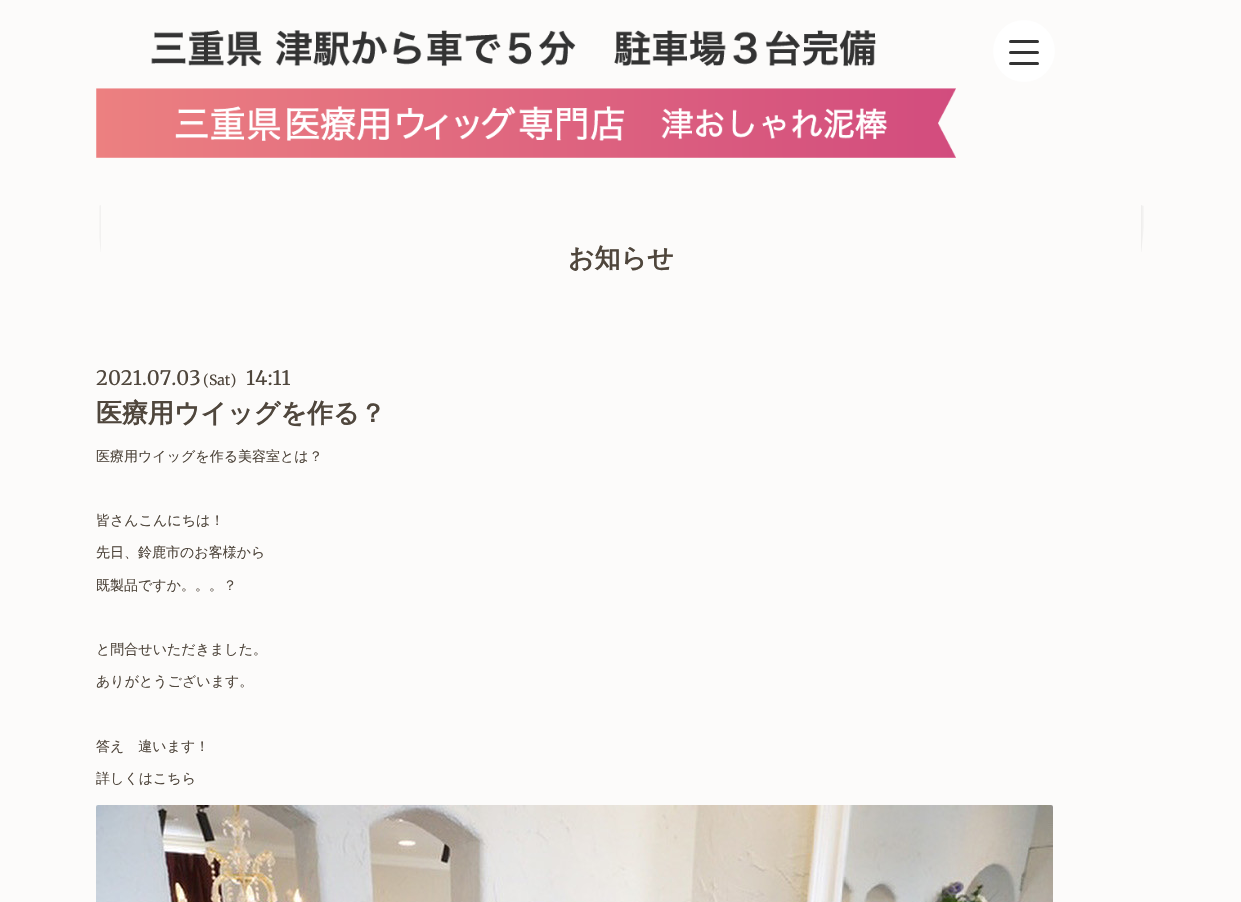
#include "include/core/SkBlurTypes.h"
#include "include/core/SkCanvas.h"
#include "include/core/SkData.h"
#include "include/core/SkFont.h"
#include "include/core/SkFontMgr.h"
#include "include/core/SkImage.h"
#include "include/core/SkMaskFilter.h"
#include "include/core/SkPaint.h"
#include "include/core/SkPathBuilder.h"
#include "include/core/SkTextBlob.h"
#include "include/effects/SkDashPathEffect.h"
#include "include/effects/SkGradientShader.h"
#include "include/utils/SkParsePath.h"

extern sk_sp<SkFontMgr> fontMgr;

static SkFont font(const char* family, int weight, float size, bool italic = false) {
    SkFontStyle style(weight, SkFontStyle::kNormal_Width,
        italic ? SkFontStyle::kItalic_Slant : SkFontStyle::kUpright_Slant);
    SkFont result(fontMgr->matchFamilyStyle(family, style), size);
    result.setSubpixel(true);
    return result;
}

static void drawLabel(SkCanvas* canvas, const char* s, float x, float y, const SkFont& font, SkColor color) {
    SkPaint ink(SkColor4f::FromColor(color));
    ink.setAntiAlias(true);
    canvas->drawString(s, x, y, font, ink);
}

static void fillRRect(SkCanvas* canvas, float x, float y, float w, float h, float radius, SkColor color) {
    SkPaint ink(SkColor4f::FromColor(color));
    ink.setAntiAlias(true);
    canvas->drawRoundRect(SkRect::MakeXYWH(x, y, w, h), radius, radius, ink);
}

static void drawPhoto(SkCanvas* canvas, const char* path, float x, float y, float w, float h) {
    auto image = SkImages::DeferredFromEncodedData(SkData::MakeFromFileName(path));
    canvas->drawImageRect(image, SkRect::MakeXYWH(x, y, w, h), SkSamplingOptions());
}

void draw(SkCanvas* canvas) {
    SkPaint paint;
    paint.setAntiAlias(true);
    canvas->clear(0xFFFCFBFA);
    drawPhoto(canvas, "assets/img1.png", 96, 30, 860, 128);
    paint.setColor(0xFFFFFFFF);
    canvas->drawCircle(1024, 51, 31, paint);
    fillRRect(canvas, 1009, 40, 30, 3, 1.5f, 0xFF333333);
    fillRRect(canvas, 1009, 51, 30, 3, 1.5f, 0xFF333333);
    fillRRect(canvas, 1009, 62, 30, 3, 1.5f, 0xFF333333);
    drawPhoto(canvas, "assets/img2.png", 99, 205, 1045, 47);
    SkFont font1 = font("WenQuanYi Zen Hei", 700, 26);
    drawLabel(canvas, "お知らせ", 568, 267, font1, 0xFF4F463C);
    SkFont font2 = font("Merriweather", 400, 20);
    drawLabel(canvas, "2021.07.03", 96, 385, font2, 0xFF4F463C);
    SkFont font3 = font("Merriweather", 400, 14);
    drawLabel(canvas, "(Sat)", 203, 385, font3, 0xFF4F463C);
    drawLabel(canvas, "14:11", 246, 385, font2, 0xFF4F463C);
    drawLabel(canvas, "医療用ウイッグを作る？", 96, 422, font1, 0xFF4F463C);
    SkFont font4 = font("WenQuanYi Zen Hei", 500, 14);
    drawLabel(canvas, "医療用ウイッグを作る美容室とは？", 96, 461, font4, 0xFF4F463C);
    drawLabel(canvas, "皆さんこんにちは！", 96, 525, font4, 0xFF4F463C);
    drawLabel(canvas, "先日、鈴鹿市のお客様から", 96, 557, font4, 0xFF4F463C);
    drawLabel(canvas, "既製品ですか。。。？", 96, 590, font4, 0xFF4F463C);
    drawLabel(canvas, "と問合せいただきました。", 96, 654, font4, 0xFF4F463C);
    drawLabel(canvas, "ありがとうございます。", 96, 686, font4, 0xFF4F463C);
    drawLabel(canvas, "答え　違います！", 96, 751, font4, 0xFF4F463C);
    drawLabel(canvas, "詳しくはこちら", 96, 783, font4, 0xFF4F463C);
    drawPhoto(canvas, "assets/img3.png", 96, 805, 957, 97);
}
